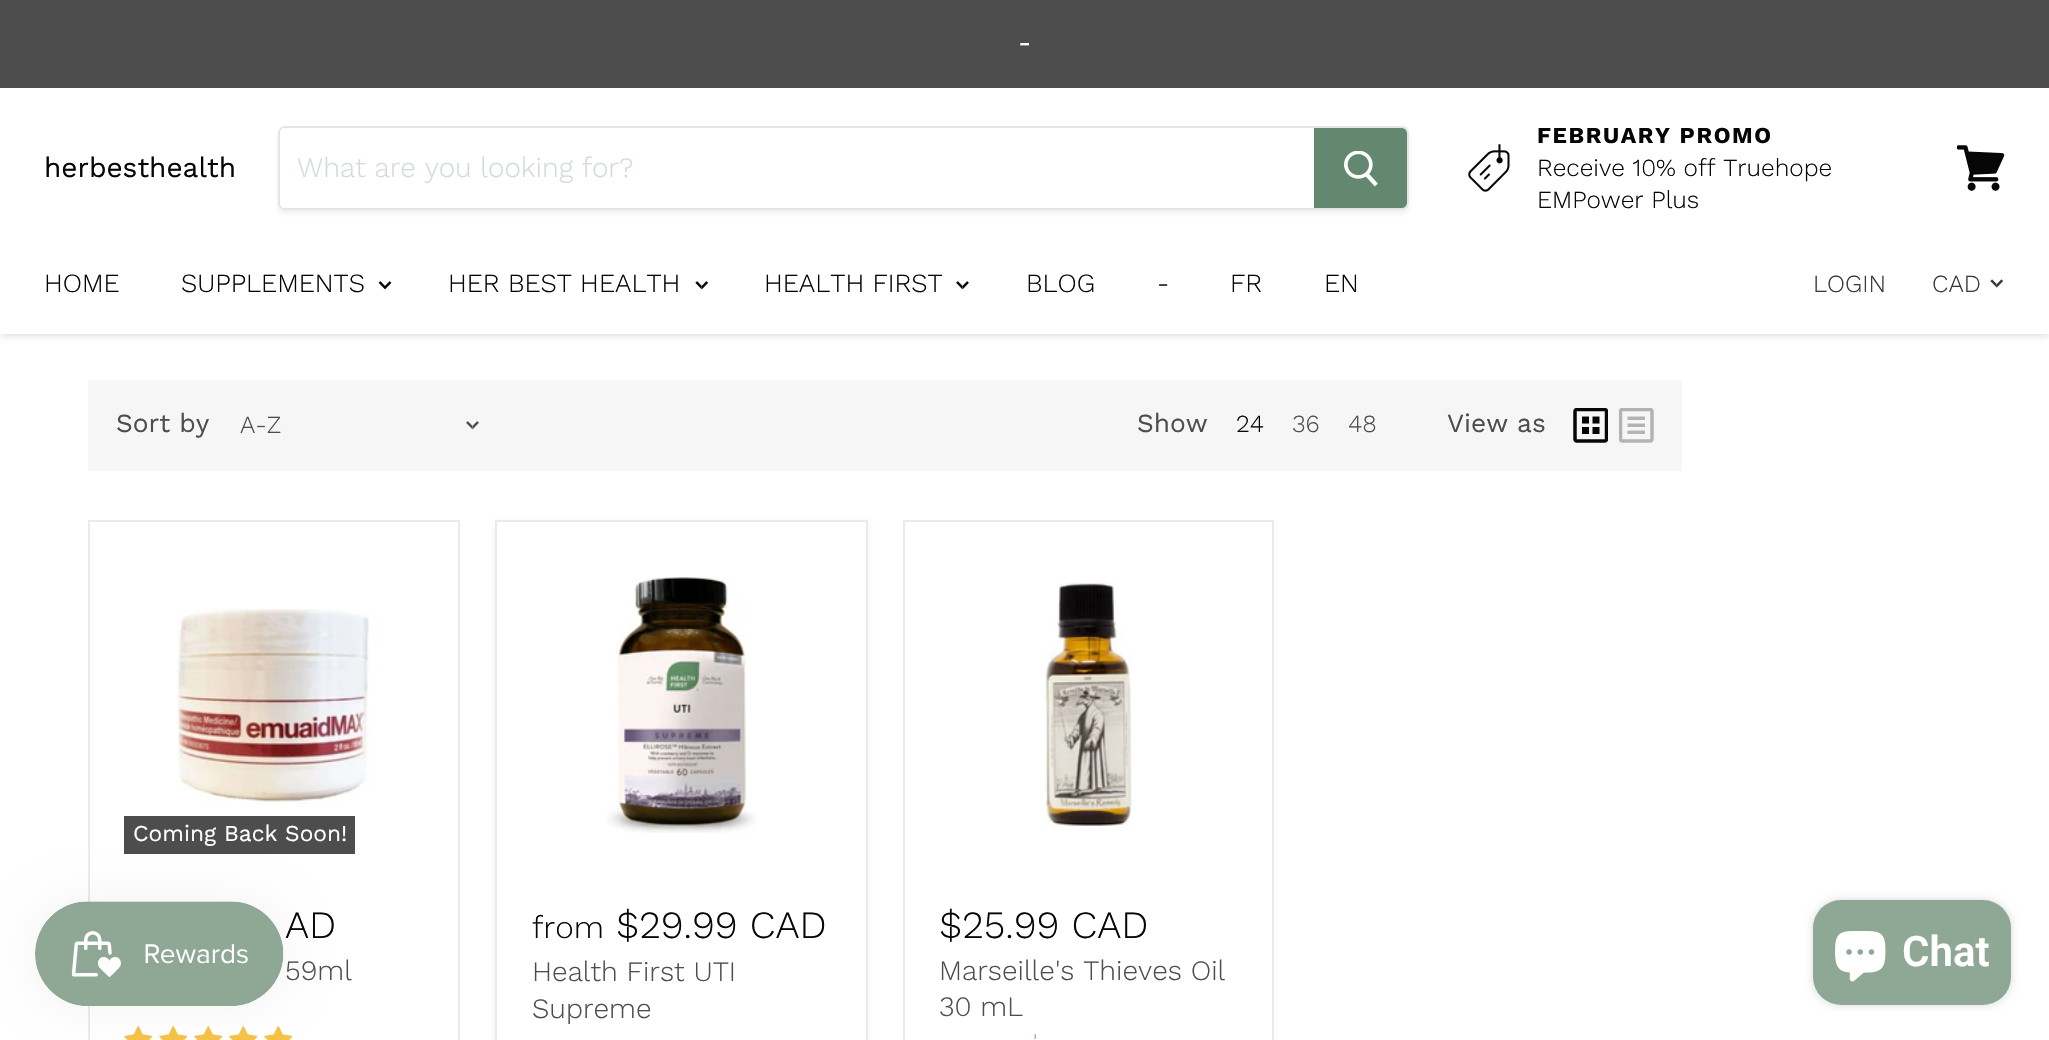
#include "include/core/SkBlurTypes.h"
#include "include/core/SkCanvas.h"
#include "include/core/SkData.h"
#include "include/core/SkFont.h"
#include "include/core/SkFontMgr.h"
#include "include/core/SkImage.h"
#include "include/core/SkMaskFilter.h"
#include "include/core/SkPaint.h"
#include "include/core/SkPathBuilder.h"
#include "include/core/SkTextBlob.h"
#include "include/effects/SkDashPathEffect.h"
#include "include/effects/SkGradientShader.h"
#include "include/utils/SkParsePath.h"

extern sk_sp<SkFontMgr> fontMgr;

static SkFont font(const char* family, int weight, float size, bool italic = false) {
    SkFontStyle style(weight, SkFontStyle::kNormal_Width,
        italic ? SkFontStyle::kItalic_Slant : SkFontStyle::kUpright_Slant);
    SkFont result(fontMgr->matchFamilyStyle(family, style), size);
    result.setSubpixel(true);
    return result;
}

static void drawLabel(SkCanvas* canvas, const char* s, float x, float y, const SkFont& font, SkColor color) {
    SkPaint ink(SkColor4f::FromColor(color));
    ink.setAntiAlias(true);
    canvas->drawString(s, x, y, font, ink);
}

static void drawTracked(SkCanvas* canvas, const char* s, float x, float y, const SkFont& font, const SkPaint& ink, float letter, float word) {
    std::vector<SkGlyphID> glyphs(font.countText(s, strlen(s), SkTextEncoding::kUTF8));
    std::vector<float> xs(glyphs.size());
    font.textToGlyphs(s, strlen(s), SkTextEncoding::kUTF8, glyphs);
    font.getXPos(glyphs, xs, x);
    float extra = 0;
    for (size_t i = 0; i < glyphs.size(); i++) {
        xs[i] += extra;
        extra += letter + word * (glyphs[i] == font.unicharToGlyph(' '));
    }
    canvas->drawTextBlob(SkTextBlob::MakeFromPosHGlyphs(glyphs, xs, y, font), 0, 0, ink);
}

static void fillRect(SkCanvas* canvas, float x, float y, float w, float h, SkColor color) {
    SkPaint ink(SkColor4f::FromColor(color));
    ink.setAntiAlias(true);
    canvas->drawRect(SkRect::MakeXYWH(x, y, w, h), ink);
}

static void fillRRect(SkCanvas* canvas, float x, float y, float w, float h, float radius, SkColor color) {
    SkPaint ink(SkColor4f::FromColor(color));
    ink.setAntiAlias(true);
    canvas->drawRoundRect(SkRect::MakeXYWH(x, y, w, h), radius, radius, ink);
}

static void drawPhoto(SkCanvas* canvas, const char* path, float x, float y, float w, float h) {
    auto image = SkImages::DeferredFromEncodedData(SkData::MakeFromFileName(path));
    canvas->drawImageRect(image, SkRect::MakeXYWH(x, y, w, h), SkSamplingOptions());
}

static SkPath parsePath(const char* data, bool evenOdd = false) {
    SkPath result = *SkParsePath::FromSVGString(data);
    if (evenOdd) result.setFillType(SkPathFillType::kEvenOdd);
    return result;
}

void draw(SkCanvas* canvas) {
    SkPaint paint;
    paint.setAntiAlias(true);
    canvas->clear(0xFFFFFFFF);
    paint.setColor(0x407F7F7F);
    paint.setMaskFilter(SkMaskFilter::MakeBlur(kNormal_SkBlurStyle, 3.5f));
    canvas->drawRect(SkRect::MakeXYWH(0, 89, 2049, 247), paint);
    paint.setMaskFilter(nullptr);
    fillRect(canvas, 0, 0, 2049, 88, 0xFF4D4D4D);
    SkFont font1 = font("Work Sans", 400, 26.25f);
    drawLabel(canvas, "-", 1018, 51, font1, 0xFFFFFFFF);
    fillRect(canvas, 0, 88, 2049, 246, 0xFFFFFFFF);
    SkFont font2 = font("Work Sans", 400, 28);
    drawLabel(canvas, "herbesthealth", 44, 177, font2, 0xFF070607);
    canvas->save();
    canvas->clipPath(parsePath("M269 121H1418V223H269ZM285 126H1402C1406 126 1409 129 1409 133V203C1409 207 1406 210 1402 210H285C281 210 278 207 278 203V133C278 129 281 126 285 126Z", true), true);
    paint.setColor(0x1C7F7F7F);
    paint.setMaskFilter(SkMaskFilter::MakeBlur(kNormal_SkBlurStyle, 2.5f));
    canvas->drawRoundRect(SkRect::MakeXYWH(278, 130, 1131, 84), 7, 7, paint);
    paint.setMaskFilter(nullptr);
    canvas->restore();
    paint.setStroke(true);
    paint.setStrokeWidth(2);
    paint.setColor(0x337F7F7F);
    canvas->drawRoundRect(SkRect::MakeXYWH(279, 127, 1129, 82), 6, 6, paint);
    paint.setStroke(false);
    paint.setColor(0xFFFFFFFF);
    canvas->drawPath(parsePath("M285 128H1314V208H285C282 208 280 206 280 203V133C280 130 282 128 285 128Z"), paint);
    SkFont font3 = font("Work Sans", 300, 28);
    drawLabel(canvas, "What are you looking for?", 297, 177, font3, 0xFFD2DCD5);
    paint.setColor(0xFF63876F);
    canvas->drawPath(parsePath("M1315 129H1402C1404 129 1406 131 1406 133V203C1406 205 1404 207 1402 207H1315Z"), paint);
    paint.setStroke(true);
    canvas->drawPath(parsePath("M1315 129H1402C1404 129 1406 131 1406 133V203C1406 205 1404 207 1402 207H1315Z"), paint);
    drawPhoto(canvas, "assets/img1.png", 1344, 151, 34, 36);
    drawPhoto(canvas, "assets/img2.png", 1468, 144, 42, 48);
    SkFont font4 = font("Work Sans", 700, 22.75f);
    paint.setStroke(false);
    paint.setColor(0xFF070607);
    drawTracked(canvas, "FEBRUARY PROMO", 1537, 143, font4, paint, 1.6f, 0);
    SkFont font5 = font("Work Sans", 300, 24.5f);
    drawLabel(canvas, "Receive 10% off Truehope", 1537, 176, font5, 0xFF070607);
    drawLabel(canvas, "EMPower Plus", 1537, 208, font5, 0xFF070607);
    drawPhoto(canvas, "assets/img3.png", 1957, 145, 48, 46);
    SkFont font6 = font("Work Sans", 300, 26.25f);
    drawLabel(canvas, "HOME", 44, 292, font6, 0xFF070607);
    drawLabel(canvas, "SUPPLEMENTS", 181, 292, font6, 0xFF070607);
    drawPhoto(canvas, "assets/img4.png", 378, 281, 14, 9);
    drawLabel(canvas, "HER BEST HEALTH", 448, 292, font6, 0xFF070607);
    drawPhoto(canvas, "assets/img5.png", 695, 281, 14, 9);
    drawLabel(canvas, "HEALTH FIRST", 764, 292, font6, 0xFF070607);
    drawPhoto(canvas, "assets/img6.png", 956, 281, 13, 9);
    drawLabel(canvas, "BLOG", 1026, 292, font6, 0xFF070607);
    drawLabel(canvas, "-", 1157, 292, font6, 0xFF070607);
    drawLabel(canvas, "FR", 1230, 292, font6, 0xFF070607);
    drawLabel(canvas, "EN", 1324, 292, font6, 0xFF070607);
    drawLabel(canvas, "LOGIN", 1813, 292, font5, 0xFF393839);
    drawLabel(canvas, "CAD", 1932, 292, font5, 0xFF393839);
    drawPhoto(canvas, "assets/img7.png", 1990, 279, 13, 9);
    fillRect(canvas, 88, 380, 1594, 91, 0xFFF6F6F6);
    drawLabel(canvas, "Sort by", 116, 432, font1, 0xFF4D4D4D);
    drawLabel(canvas, "A-Z", 240, 433, font5, 0xFF4D4D4D);
    drawPhoto(canvas, "assets/img8.png", 466, 421, 13, 9);
    drawLabel(canvas, "Show", 1137, 432, font1, 0xFF4D4D4D);
    drawLabel(canvas, "24", 1236, 432, font5, 0xFF070607);
    drawLabel(canvas, "36", 1292, 432, font5, 0xFF4D4D4D);
    drawLabel(canvas, "48", 1348, 432, font5, 0xFF4D4D4D);
    drawLabel(canvas, "View as", 1447, 432, font1, 0xFF4D4D4D);
    drawPhoto(canvas, "assets/img9.png", 1573, 408, 35, 35);
    drawPhoto(canvas, "assets/img10.png", 1619, 408, 35, 35);
    paint.setStroke(true);
    paint.setColor(0xFFEBEBEB);
    canvas->drawRect(SkRect::MakeXYWH(89, 521, 370, 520), paint);
    drawPhoto(canvas, "assets/img11.png", 177, 607, 193, 197);
    fillRect(canvas, 124, 816, 231, 38, 0xFF4D4D4D);
    SkFont font7 = font("Work Sans", 400, 22.75f);
    drawLabel(canvas, "Coming Back Soon!", 133, 841, font7, 0xFFFFFFFF);
    SkFont font8 = font("Work Sans", 300, 38.5f);
    drawLabel(canvas, "AD", 285, 938, font8, 0xFF070607);
    drawLabel(canvas, "59ml", 285, 980, font3, 0xFF4D4D4D);
    drawPhoto(canvas, "assets/img12.png", 124, 1026, 29, 14);
    drawPhoto(canvas, "assets/img12.png", 159, 1026, 29, 14);
    drawPhoto(canvas, "assets/img12.png", 194, 1026, 29, 14);
    drawPhoto(canvas, "assets/img12.png", 229, 1026, 29, 14);
    drawPhoto(canvas, "assets/img12.png", 264, 1026, 29, 14);
    paint.setStroke(false);
    paint.setColor(0x1C7F7F7F);
    paint.setMaskFilter(SkMaskFilter::MakeBlur(kNormal_SkBlurStyle, 3.5f));
    canvas->drawRect(SkRect::MakeXYWH(495, 522, 373, 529), paint);
    paint.setMaskFilter(nullptr);
    paint.setColor(0xFFFFFFFF);
    canvas->drawRect(SkRect::MakeXYWH(496, 521, 371, 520), paint);
    paint.setStroke(true);
    paint.setColor(0xFFEBEBEB);
    canvas->drawRect(SkRect::MakeXYWH(496, 521, 371, 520), paint);
    drawPhoto(canvas, "assets/img13.png", 607, 577, 149, 256);
    SkFont font9 = font("Work Sans", 300, 31.5f);
    drawLabel(canvas, "from", 532, 938, font9, 0xFF070607);
    drawLabel(canvas, "$29.99 CAD", 616, 938, font8, 0xFF070607);
    drawLabel(canvas, "Health First UTI", 532, 981, font3, 0xFF4D4D4D);
    drawLabel(canvas, "Supreme", 532, 1018, font3, 0xFF4D4D4D);
    canvas->drawRect(SkRect::MakeXYWH(904, 521, 369, 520), paint);
    drawPhoto(canvas, "assets/img14.png", 1044, 581, 89, 246);
    drawLabel(canvas, "$25.99 CAD", 939, 938, font8, 0xFF070607);
    drawLabel(canvas, "Marseille's Thieves Oil", 939, 980, font3, 0xFF4D4D4D);
    drawLabel(canvas, "30 mL", 939, 1016, font3, 0xFF4D4D4D);
    SkFont font10 = font("Work Sans", 300, 22.75f);
    drawLabel(canvas, "'", 1033, 1050, font10, 0xFF8FA896);
    paint.setStroke(false);
    paint.setColor(0x0D000000);
    paint.setMaskFilter(SkMaskFilter::MakeBlur(kNormal_SkBlurStyle, 22));
    canvas->drawRoundRect(SkRect::MakeXYWH(35, 901, 249, 105), 52.5f, 52.5f, paint);
    paint.setMaskFilter(nullptr);
    drawPhoto(canvas, "assets/img15.png", 35, 901, 249, 105);
    paint.setColor(0x26000000);
    paint.setMaskFilter(SkMaskFilter::MakeBlur(kNormal_SkBlurStyle, 4.5f));
    canvas->drawRoundRect(SkRect::MakeXYWH(1813, 900, 198, 105), 28, 28, paint);
    paint.setMaskFilter(nullptr);
    fillRRect(canvas, 1813, 900, 198, 105, 28, 0xFF8FA896);
    drawPhoto(canvas, "assets/img16.png", 1835, 931, 51, 51);
    SkFont font11 = font("Roboto", 600, 42);
    drawLabel(canvas, "Chat", 1902, 966, font11, 0xFFFFFFFF);
}
